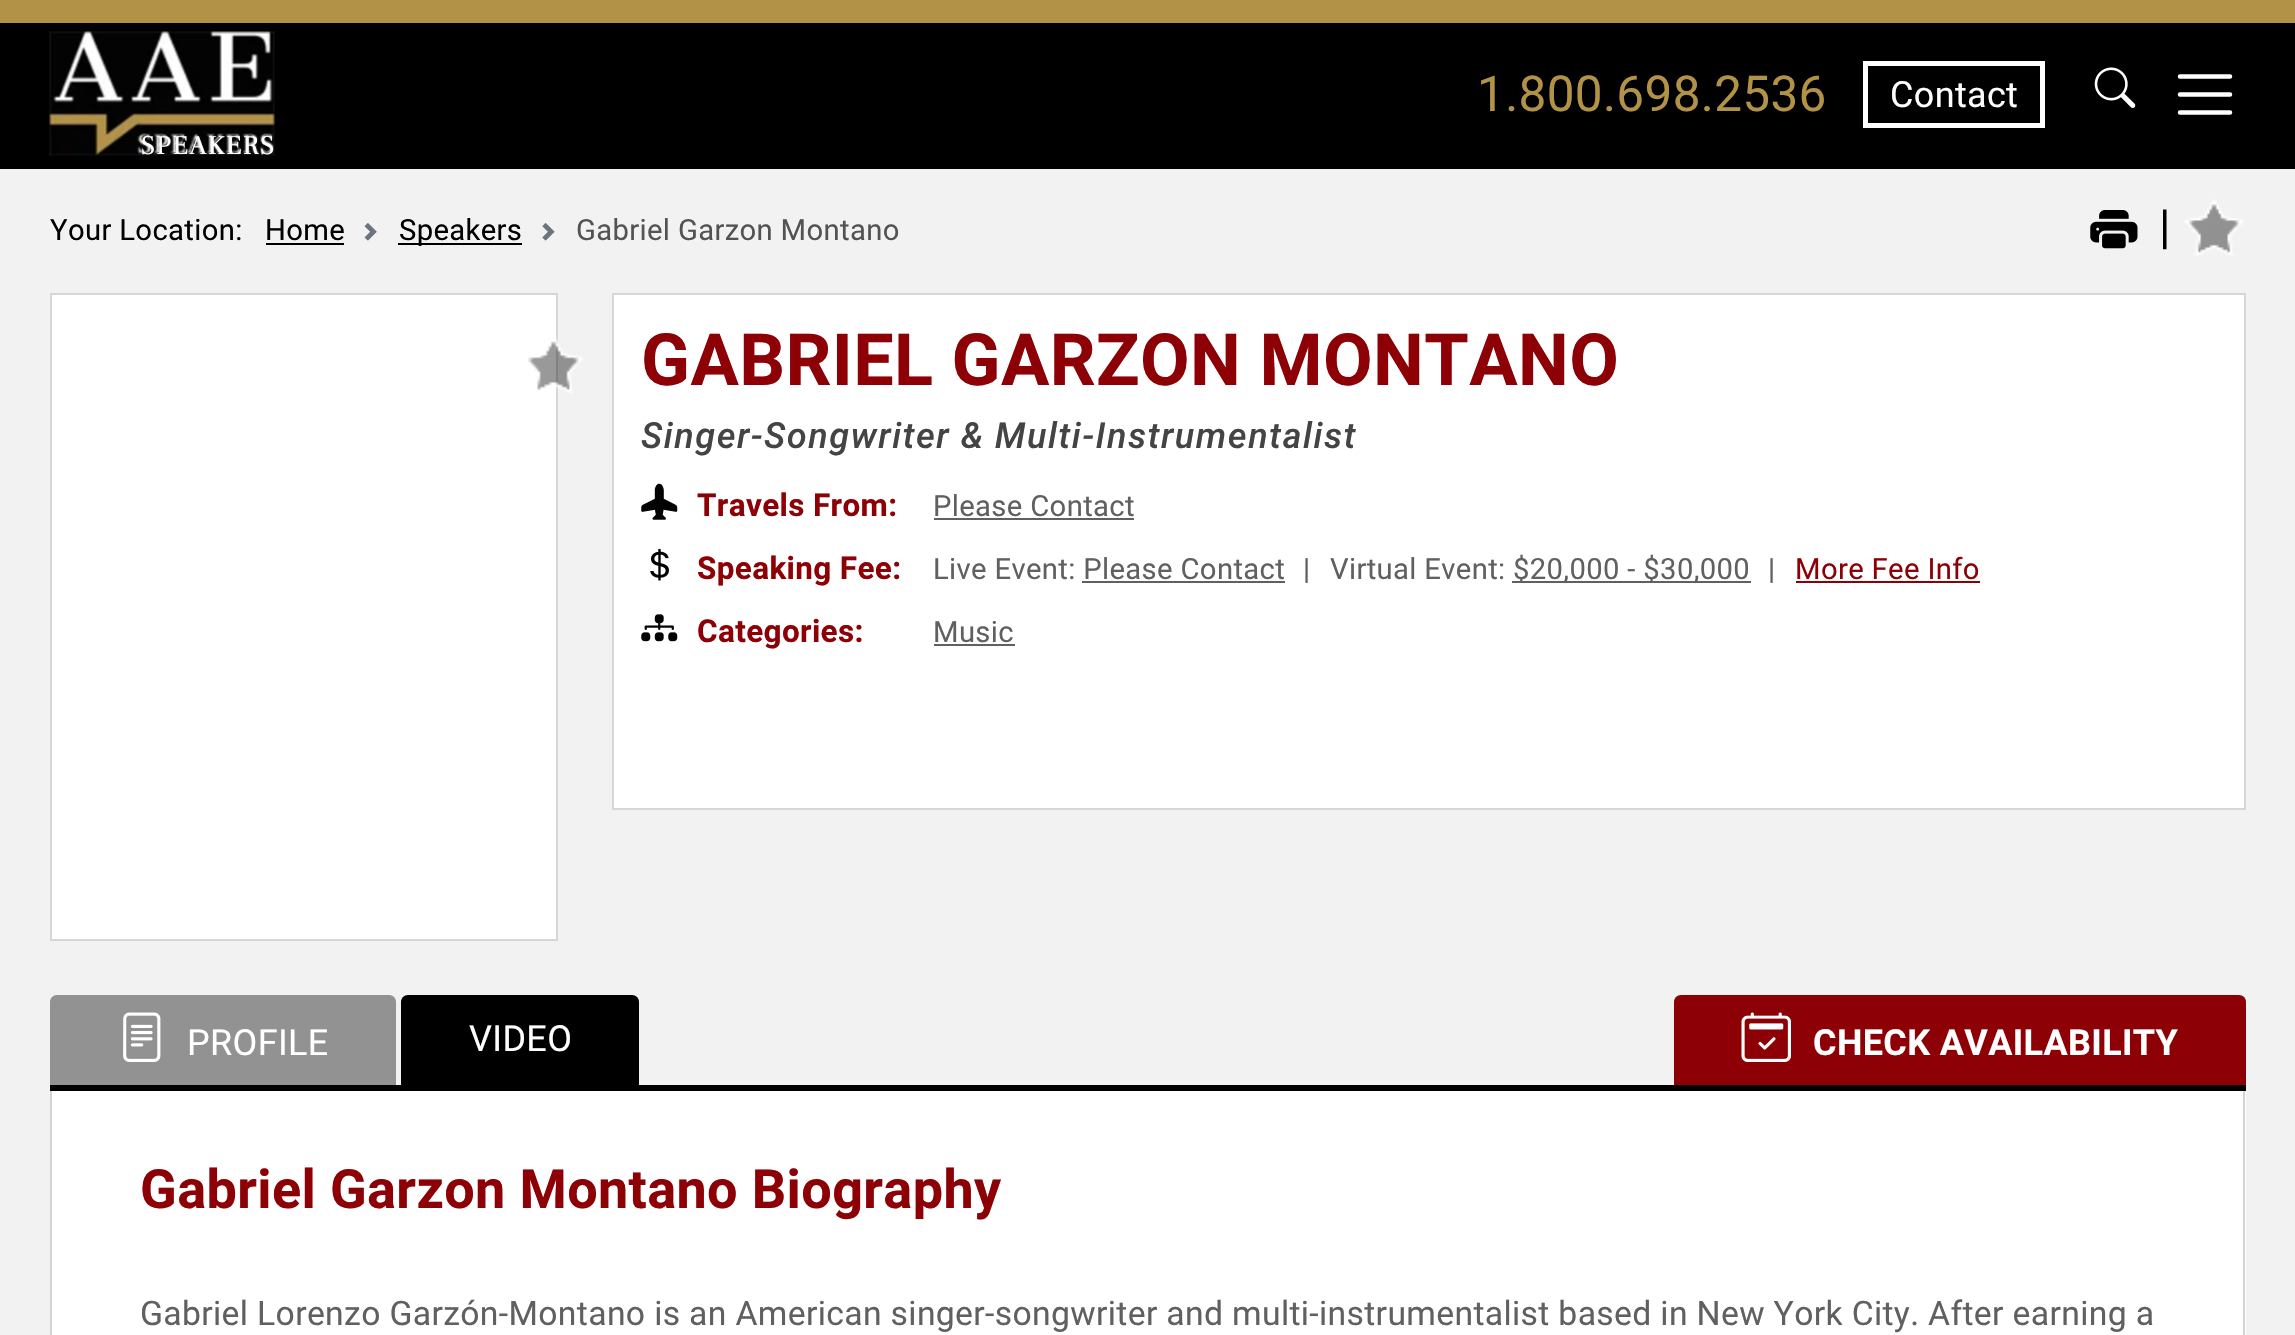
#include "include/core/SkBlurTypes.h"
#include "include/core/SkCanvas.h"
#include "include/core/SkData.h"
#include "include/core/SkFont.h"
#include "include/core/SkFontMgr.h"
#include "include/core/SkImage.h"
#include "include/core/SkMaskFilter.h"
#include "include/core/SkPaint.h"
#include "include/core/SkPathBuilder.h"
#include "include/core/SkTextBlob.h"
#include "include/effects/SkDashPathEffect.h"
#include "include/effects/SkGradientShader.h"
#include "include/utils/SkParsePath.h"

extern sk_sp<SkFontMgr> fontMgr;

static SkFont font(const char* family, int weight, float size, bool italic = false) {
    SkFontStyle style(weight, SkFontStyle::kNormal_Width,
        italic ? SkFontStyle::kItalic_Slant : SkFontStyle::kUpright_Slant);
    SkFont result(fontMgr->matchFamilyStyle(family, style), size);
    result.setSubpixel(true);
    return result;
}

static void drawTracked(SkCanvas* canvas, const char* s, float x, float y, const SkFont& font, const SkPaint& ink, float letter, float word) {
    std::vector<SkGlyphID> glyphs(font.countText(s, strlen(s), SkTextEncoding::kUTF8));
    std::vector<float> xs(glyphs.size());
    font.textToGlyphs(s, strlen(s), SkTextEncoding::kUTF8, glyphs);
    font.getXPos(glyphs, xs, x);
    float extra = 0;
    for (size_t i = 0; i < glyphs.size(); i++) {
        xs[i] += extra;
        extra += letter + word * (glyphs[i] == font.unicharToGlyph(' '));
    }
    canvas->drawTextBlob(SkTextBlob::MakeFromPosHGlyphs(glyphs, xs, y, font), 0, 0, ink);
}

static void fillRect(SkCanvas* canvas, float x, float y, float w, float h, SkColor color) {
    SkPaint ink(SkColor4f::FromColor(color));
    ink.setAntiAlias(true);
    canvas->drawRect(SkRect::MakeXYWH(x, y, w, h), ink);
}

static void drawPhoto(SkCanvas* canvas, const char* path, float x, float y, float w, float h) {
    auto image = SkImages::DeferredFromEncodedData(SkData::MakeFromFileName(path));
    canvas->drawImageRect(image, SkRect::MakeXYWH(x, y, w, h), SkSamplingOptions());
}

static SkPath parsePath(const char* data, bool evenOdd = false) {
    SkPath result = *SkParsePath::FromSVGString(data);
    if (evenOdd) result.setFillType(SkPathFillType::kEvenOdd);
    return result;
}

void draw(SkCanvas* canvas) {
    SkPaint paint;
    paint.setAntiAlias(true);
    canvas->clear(0xFFF2F2F2);
    fillRect(canvas, 0, 0, 2295, 23, 0xFFB29247);
    fillRect(canvas, 0, 23, 2295, 146, 0xFF000000);
    SkFont font1 = font("Roboto", 400, 49.5f);
    paint.setColor(0xFFB29247);
    drawTracked(canvas, "1.800.698.2536", 1477, 111, font1, paint, 0.35f, 0);
    paint.setStroke(true);
    paint.setStrokeWidth(5);
    paint.setColor(0xFFFFFFFF);
    canvas->drawRect(SkRect::MakeXYWH(1865.5f, 63.5f, 177, 62), paint);
    SkFont font2 = font("Roboto", 400, 36);
    paint.setStroke(false);
    drawTracked(canvas, "Contact", 1890, 107, font2, paint, 0.35f, 0);
    drawPhoto(canvas, "assets/img1.png", 2094, 67, 42, 41);
    paint.setStroke(true);
    paint.setStrokeWidth(4.5f);
    paint.setStrokeCap(SkPaint::kRound_Cap);
    canvas->drawPath(parsePath("M2180 76.5H2230M2180 94.5H2230M2180 112.5H2230"), paint);
    drawPhoto(canvas, "assets/img2.png", 49, 31, 226, 125);
    SkFont font3 = font("Frank Ruhl Libre", 400, 27);
    paint.setStroke(false);
    drawTracked(canvas, "SPEAKERS", 141, 154, font3, paint, 1, 0);
    SkFont font4 = font("Roboto", 400, 29.25f);
    paint.setColor(0xFF000000);
    drawTracked(canvas, "Your Location:", 50, 240, font4, paint, 0.35f, 0);
    drawTracked(canvas, "Home", 265, 240, font4, paint, 0.35f, 0);
    fillRect(canvas, 266, 243, 78, 2, 0xFF000000);
    drawPhoto(canvas, "assets/img3.png", 364, 223, 13, 18);
    fillRect(canvas, 398, 243, 124, 2, 0xFF000000);
    drawTracked(canvas, "Speakers", 399, 240, font4, paint, 0.35f, 0);
    drawPhoto(canvas, "assets/img4.png", 542, 223, 13, 18);
    paint.setColor(0xFF535353);
    drawTracked(canvas, "Gabriel Garzon Montano", 576, 240, font4, paint, 0.35f, 0);
    drawPhoto(canvas, "assets/img5.png", 2090, 210, 48, 39);
    SkFont font5 = font("Roboto", 400, 47);
    paint.setColor(0xFF000000);
    drawTracked(canvas, "|", 2159, 243, font5, paint, 0.35f, 0);
    drawPhoto(canvas, "assets/img6.png", 2184, 199, 60, 57);
    paint.setColor(0xFFFFFFFF);
    canvas->drawRect(SkRect::MakeXYWH(51, 294, 506, 646), paint);
    paint.setStroke(true);
    paint.setStrokeWidth(2);
    paint.setStrokeCap(SkPaint::kButt_Cap);
    paint.setColor(0xFFD7D7D7);
    canvas->drawRect(SkRect::MakeXYWH(51, 294, 506, 646), paint);
    drawPhoto(canvas, "assets/img7.png", 528, 337, 55, 57);
    paint.setStroke(false);
    paint.setColor(0xFFFFFFFF);
    canvas->drawRect(SkRect::MakeXYWH(613, 294, 1632, 515), paint);
    paint.setStroke(true);
    paint.setColor(0xFFD7D7D7);
    canvas->drawRect(SkRect::MakeXYWH(613, 294, 1632, 515), paint);
    SkFont font6 = font("Roboto", 700, 72);
    paint.setStroke(false);
    paint.setColor(0xFF8D0106);
    drawTracked(canvas, "GABRIEL GARZON MONTANO", 641, 385, font6, paint, 0.35f, 0);
    SkFont font7 = font("Roboto", 500, 36, true);
    paint.setColor(0xFF444444);
    drawTracked(canvas, "Singer-Songwriter & Multi-Instrumentalist", 641, 448, font7, paint, 1.45f, 0);
    drawPhoto(canvas, "assets/img8.png", 641, 483, 37, 37);
    SkFont font8 = font("Roboto", 700, 31.5f);
    paint.setColor(0xFF8D0106);
    drawTracked(canvas, "Travels From:", 697, 516, font8, paint, 0.35f, 0);
    paint.setColor(0xFF606060);
    drawTracked(canvas, "Please Contact", 933, 516, font4, paint, 0.35f, 0);
    fillRect(canvas, 934, 518, 200, 2, 0xFF606060);
    drawPhoto(canvas, "assets/img9.png", 650, 549, 19, 32);
    paint.setColor(0xFF8D0106);
    drawTracked(canvas, "Speaking Fee:", 697, 579, font8, paint, 0.35f, 0);
    paint.setColor(0xFF606060);
    drawTracked(canvas, "Live Event: Please Contact", 933, 579, font4, paint, 0.35f, 0);
    drawTracked(canvas, "|", 1303, 579, font4, paint, 0.35f, 0);
    fillRect(canvas, 1082, 581, 203, 2, 0xFF606060);
    drawTracked(canvas, "Virtual Event:", 1330, 579, font4, paint, 0.35f, 0);
    fillRect(canvas, 1512, 581, 239, 2, 0xFF606060);
    drawTracked(canvas, "$20,000 - $30,000", 1513, 579, font4, paint, 0.35f, 0);
    drawTracked(canvas, "|", 1768, 579, font4, paint, 0.35f, 0);
    paint.setColor(0xFF8D0106);
    drawTracked(canvas, "More Fee Info", 1795, 579, font4, paint, 0.35f, 0);
    fillRect(canvas, 1796, 581, 184, 2, 0xFF8D0106);
    drawPhoto(canvas, "assets/img10.png", 641, 614, 37, 28);
    drawTracked(canvas, "Categories:", 697, 642, font8, paint, 0.35f, 0);
    paint.setColor(0xFF606060);
    drawTracked(canvas, "Music", 933, 642, font4, paint, 0.35f, 0);
    fillRect(canvas, 934, 644, 81, 2, 0xFF606060);
    paint.setColor(0xFF929292);
    canvas->drawPath(parsePath("M57 995H389C393 995 396 998 396 1002V1085H50V1002C50 998 53 995 57 995Z"), paint);
    drawPhoto(canvas, "assets/img11.png", 123, 1012, 38, 50);
    paint.setColor(0xFFFFFFFF);
    drawTracked(canvas, "PROFILE", 187, 1055, font2, paint, 0.35f, 0);
    paint.setColor(0xFF000000);
    canvas->drawPath(parsePath("M408 995H632C636 995 639 998 639 1002V1085H401V1002C401 998 404 995 408 995Z"), paint);
    paint.setColor(0xFFFFFFFF);
    drawTracked(canvas, "VIDEO", 469, 1051, font2, paint, 0.35f, 0);
    paint.setColor(0xFF8D0106);
    canvas->drawPath(parsePath("M1681 995H2239C2243 995 2246 998 2246 1002V1085H1674V1002C1674 998 1677 995 1681 995Z"), paint);
    drawPhoto(canvas, "assets/img12.png", 1741, 1012, 50, 50);
    SkFont font9 = font("Roboto", 700, 36);
    paint.setColor(0xFFFFFFFF);
    drawTracked(canvas, "CHECK AVAILABILITY", 1813, 1055, font9, paint, 0.35f, 0);
    fillRect(canvas, 50, 1085, 2196, 6, 0xFF000000);
    fillRect(canvas, 52, 1091, 2194, 244, 0xFFFFFFFF);
    fillRect(canvas, 2243, 1091, 2, 244, 0xFFD4D4D4);
    fillRect(canvas, 50, 1091, 2, 244, 0xFFD4D4D4);
    SkFont font10 = font("Roboto", 700, 54);
    paint.setColor(0xFF8D0106);
    drawTracked(canvas, "Gabriel Garzon Montano Biography", 140, 1208, font10, paint, 0.35f, 0);
    SkFont font11 = font("Roboto", 400, 33.75f);
    paint.setColor(0xFF606060);
    drawTracked(canvas, "Gabriel Lorenzo Garzón-Montano is an American singer-songwriter and multi-instrumentalist based in New York City. After earning a", 140, 1325, font11, paint, 0.34f, 0);
}
